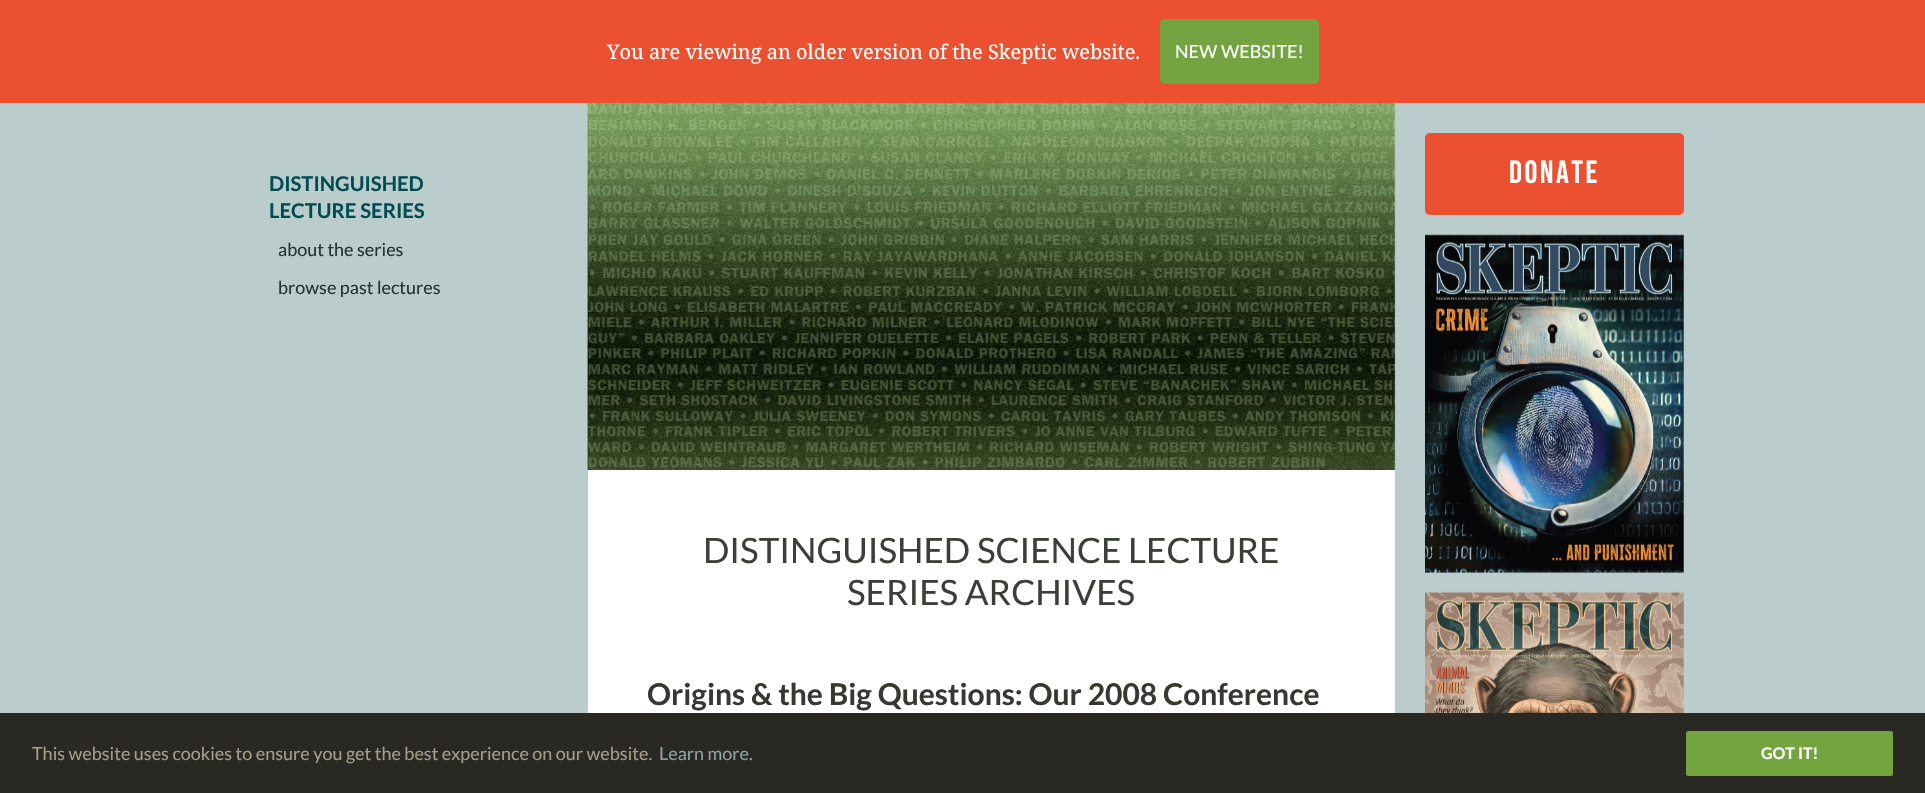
#include "include/core/SkBlurTypes.h"
#include "include/core/SkCanvas.h"
#include "include/core/SkData.h"
#include "include/core/SkFont.h"
#include "include/core/SkFontMgr.h"
#include "include/core/SkImage.h"
#include "include/core/SkMaskFilter.h"
#include "include/core/SkPaint.h"
#include "include/core/SkPathBuilder.h"
#include "include/core/SkTextBlob.h"
#include "include/effects/SkDashPathEffect.h"
#include "include/effects/SkGradientShader.h"
#include "include/utils/SkParsePath.h"

extern sk_sp<SkFontMgr> fontMgr;

static SkFont font(const char* family, int weight, float size, bool italic = false) {
    SkFontStyle style(weight, SkFontStyle::kNormal_Width,
        italic ? SkFontStyle::kItalic_Slant : SkFontStyle::kUpright_Slant);
    SkFont result(fontMgr->matchFamilyStyle(family, style), size);
    result.setSubpixel(true);
    return result;
}

static void drawLabel(SkCanvas* canvas, const char* s, float x, float y, const SkFont& font, SkColor color) {
    SkPaint ink(SkColor4f::FromColor(color));
    ink.setAntiAlias(true);
    canvas->drawString(s, x, y, font, ink);
}

static void drawTracked(SkCanvas* canvas, const char* s, float x, float y, const SkFont& font, const SkPaint& ink, float letter, float word) {
    std::vector<SkGlyphID> glyphs(font.countText(s, strlen(s), SkTextEncoding::kUTF8));
    std::vector<float> xs(glyphs.size());
    font.textToGlyphs(s, strlen(s), SkTextEncoding::kUTF8, glyphs);
    font.getXPos(glyphs, xs, x);
    float extra = 0;
    for (size_t i = 0; i < glyphs.size(); i++) {
        xs[i] += extra;
        extra += letter + word * (glyphs[i] == font.unicharToGlyph(' '));
    }
    canvas->drawTextBlob(SkTextBlob::MakeFromPosHGlyphs(glyphs, xs, y, font), 0, 0, ink);
}

static void fillRect(SkCanvas* canvas, float x, float y, float w, float h, SkColor color) {
    SkPaint ink(SkColor4f::FromColor(color));
    ink.setAntiAlias(true);
    canvas->drawRect(SkRect::MakeXYWH(x, y, w, h), ink);
}

static void fillRRect(SkCanvas* canvas, float x, float y, float w, float h, float radius, SkColor color) {
    SkPaint ink(SkColor4f::FromColor(color));
    ink.setAntiAlias(true);
    canvas->drawRoundRect(SkRect::MakeXYWH(x, y, w, h), radius, radius, ink);
}

static void drawPhoto(SkCanvas* canvas, const char* path, float x, float y, float w, float h) {
    auto image = SkImages::DeferredFromEncodedData(SkData::MakeFromFileName(path));
    canvas->drawImageRect(image, SkRect::MakeXYWH(x, y, w, h), SkSamplingOptions());
}

void draw(SkCanvas* canvas) {
    SkPaint paint;
    paint.setAntiAlias(true);
    canvas->clear(0xFFBBCCCC);
    fillRect(canvas, 0, 0, 1925, 103, 0xFFEB5031);
    SkFont font1 = font("Noto Serif", 400, 20);
    drawLabel(canvas, "You are viewing an older version of the Skeptic website.", 607, 59, font1, 0xFFFFFFFF);
    fillRRect(canvas, 1160, 19, 159, 65, 5, 0xFF74A442);
    SkFont font2 = font("Lato", 400, 18);
    drawLabel(canvas, "NEW WEBSITE!", 1175, 58, font2, 0xFFFFFFFF);
    fillRRect(canvas, 1425, 133, 259, 82, 5, 0xFFEB5031);
    SkFont font3 = font("Bebas Neue", 400, 32);
    paint.setColor(0xFFFFFFFF);
    drawTracked(canvas, "DONATE", 1509, 183, font3, paint, 2.5f, 0);
    drawPhoto(canvas, "assets/img1.png", 1425, 234, 259, 339);
    drawPhoto(canvas, "assets/img2.png", 1425, 591, 259, 122);
    SkFont font4 = font("Lato", 700, 20.25f);
    drawLabel(canvas, "DISTINGUISHED", 269, 191, font4, 0xFF004C53);
    drawLabel(canvas, "LECTURE SERIES", 269, 218, font4, 0xFF004C53);
    drawLabel(canvas, "about the series", 278, 256, font2, 0xFF223333);
    drawLabel(canvas, "browse past lectures", 278, 294, font2, 0xFF223333);
    fillRect(canvas, 588, 103, 807, 610, 0xFFFFFFFF);
    drawPhoto(canvas, "assets/img3.png", 587, 103, 809, 367);
    SkFont font5 = font("Lato", 400, 35);
    drawLabel(canvas, "DISTINGUISHED SCIENCE LECTURE", 703, 563, font5, 0xFF3B3F38);
    drawLabel(canvas, "SERIES ARCHIVES", 847, 605, font5, 0xFF3B3F38);
    SkFont font6 = font("Lato", 700, 30);
    drawLabel(canvas, "Origins & the Big Questions: Our 2008 Conference", 647, 705, font6, 0xFF393731);
    fillRect(canvas, 0, 713, 1925, 80, 0xFF2A2823);
    drawLabel(canvas, "This website uses cookies to ensure you get the best experience on our website.", 32, 760, font2, 0xFFA49E89);
    drawLabel(canvas, "Learn more.", 659, 760, font2, 0xFF8FA2A2);
    fillRRect(canvas, 1686, 731, 207, 45, 2.5f, 0xFF74A440);
    SkFont font7 = font("Lato", 700, 16);
    drawLabel(canvas, "GOT IT!", 1761, 759, font7, 0xFFFFFFFF);
}
